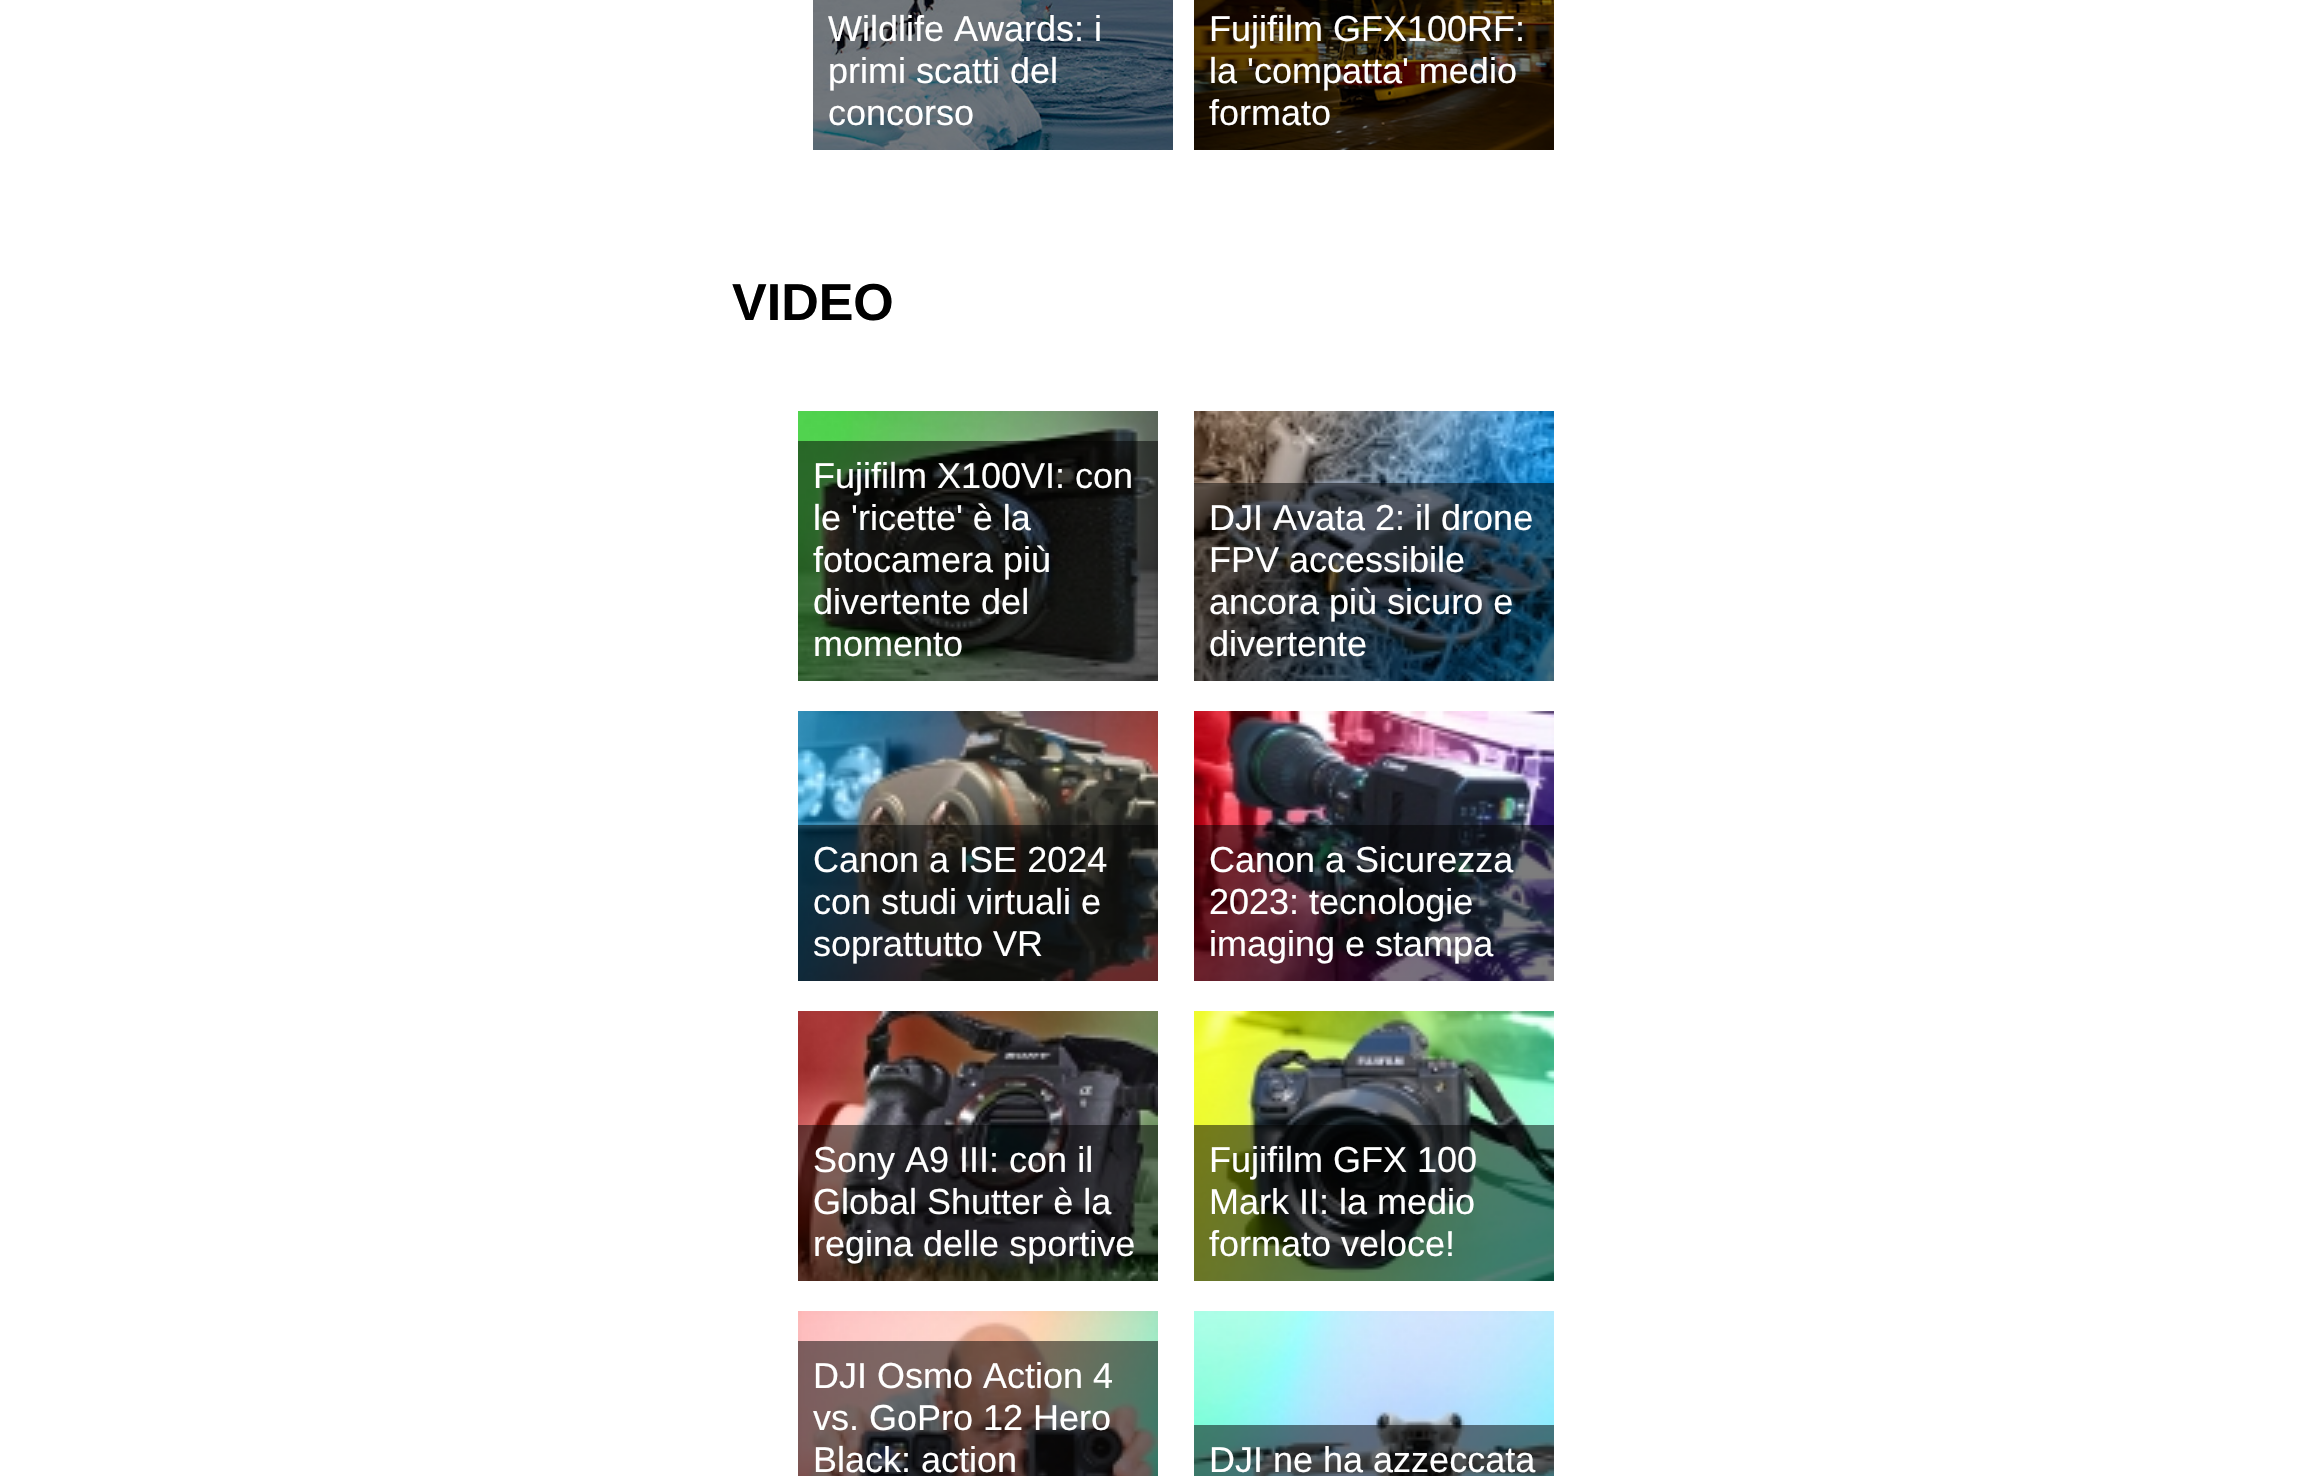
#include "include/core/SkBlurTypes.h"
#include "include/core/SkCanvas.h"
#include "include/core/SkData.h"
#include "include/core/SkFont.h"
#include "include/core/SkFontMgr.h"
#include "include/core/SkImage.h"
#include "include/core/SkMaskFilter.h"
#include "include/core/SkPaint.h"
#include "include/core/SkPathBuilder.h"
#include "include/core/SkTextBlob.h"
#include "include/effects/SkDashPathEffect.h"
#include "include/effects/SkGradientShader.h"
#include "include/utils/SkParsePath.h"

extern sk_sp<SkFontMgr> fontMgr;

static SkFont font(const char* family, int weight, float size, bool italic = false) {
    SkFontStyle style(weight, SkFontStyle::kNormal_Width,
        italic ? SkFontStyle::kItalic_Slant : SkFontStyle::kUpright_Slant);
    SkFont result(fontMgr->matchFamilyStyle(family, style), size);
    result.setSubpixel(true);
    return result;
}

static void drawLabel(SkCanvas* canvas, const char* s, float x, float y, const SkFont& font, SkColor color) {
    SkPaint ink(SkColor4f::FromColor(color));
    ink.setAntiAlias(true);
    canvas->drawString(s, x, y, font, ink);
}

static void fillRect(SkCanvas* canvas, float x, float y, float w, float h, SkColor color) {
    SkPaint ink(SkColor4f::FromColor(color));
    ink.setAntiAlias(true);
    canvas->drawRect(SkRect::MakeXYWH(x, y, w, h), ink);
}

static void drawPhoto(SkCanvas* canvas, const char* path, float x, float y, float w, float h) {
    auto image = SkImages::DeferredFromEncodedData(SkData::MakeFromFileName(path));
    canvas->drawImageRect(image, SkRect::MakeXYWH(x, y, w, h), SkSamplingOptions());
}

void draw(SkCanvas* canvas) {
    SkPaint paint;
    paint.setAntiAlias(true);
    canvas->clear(0xFFFFFFFF);
    drawPhoto(canvas, "assets/img1.png", 813, 0, 360, 150);
    SkFont font1 = font("Liberation Sans", 400, 36);
    drawLabel(canvas, "Wildlife Awards: i", 828, 41, font1, 0xFFFFFFFF);
    drawLabel(canvas, "primi scatti del", 828, 83, font1, 0xFFFFFFFF);
    drawLabel(canvas, "concorso", 828, 125, font1, 0xFFFFFFFF);
    drawPhoto(canvas, "assets/img2.png", 1194, 0, 360, 150);
    drawLabel(canvas, "Fujifilm GFX100RF:", 1209, 41, font1, 0xFFFFFFFF);
    drawLabel(canvas, "la 'compatta' medio", 1209, 83, font1, 0xFFFFFFFF);
    drawLabel(canvas, "formato", 1209, 125, font1, 0xFFFFFFFF);
    SkFont font2 = font("Liberation Sans", 700, 52);
    drawLabel(canvas, "VIDEO", 732, 320, font2, 0xFF000000);
    drawPhoto(canvas, "assets/img3.png", 798, 411, 360, 270);
    fillRect(canvas, 798, 441, 360, 240, 0x82000000);
    drawLabel(canvas, "Fujifilm X100VI: con", 813, 488, font1, 0xFFFFFFFF);
    drawLabel(canvas, "le 'ricette' è la", 813, 530, font1, 0xFFFFFFFF);
    drawLabel(canvas, "fotocamera più", 813, 572, font1, 0xFFFFFFFF);
    drawLabel(canvas, "divertente del", 813, 614, font1, 0xFFFFFFFF);
    drawLabel(canvas, "momento", 813, 656, font1, 0xFFFFFFFF);
    drawPhoto(canvas, "assets/img4.png", 1194, 411, 360, 270);
    fillRect(canvas, 1194, 483, 360, 198, 0x82000000);
    drawLabel(canvas, "DJI Avata 2: il drone", 1209, 530, font1, 0xFFFFFFFF);
    drawLabel(canvas, "FPV accessibile", 1209, 572, font1, 0xFFFFFFFF);
    drawLabel(canvas, "ancora più sicuro e", 1209, 614, font1, 0xFFFFFFFF);
    drawLabel(canvas, "divertente", 1209, 656, font1, 0xFFFFFFFF);
    drawPhoto(canvas, "assets/img5.png", 798, 711, 360, 270);
    fillRect(canvas, 798, 825, 360, 156, 0x82000000);
    drawLabel(canvas, "Canon a ISE 2024", 813, 872, font1, 0xFFFFFFFF);
    drawLabel(canvas, "con studi virtuali e", 813, 914, font1, 0xFFFFFFFF);
    drawLabel(canvas, "soprattutto VR", 813, 956, font1, 0xFFFFFFFF);
    drawPhoto(canvas, "assets/img6.png", 1194, 711, 360, 270);
    fillRect(canvas, 1194, 825, 360, 156, 0x82000000);
    drawLabel(canvas, "Canon a Sicurezza", 1209, 872, font1, 0xFFFFFFFF);
    drawLabel(canvas, "2023: tecnologie", 1209, 914, font1, 0xFFFFFFFF);
    drawLabel(canvas, "imaging e stampa", 1209, 956, font1, 0xFFFFFFFF);
    drawPhoto(canvas, "assets/img7.png", 798, 1011, 360, 270);
    fillRect(canvas, 798, 1125, 360, 156, 0x82000000);
    drawLabel(canvas, "Sony A9 III: con il", 813, 1172, font1, 0xFFFFFFFF);
    drawLabel(canvas, "Global Shutter è la", 813, 1214, font1, 0xFFFFFFFF);
    drawLabel(canvas, "regina delle sportive", 813, 1256, font1, 0xFFFFFFFF);
    drawPhoto(canvas, "assets/img8.png", 1194, 1011, 360, 270);
    fillRect(canvas, 1194, 1125, 360, 156, 0x82000000);
    drawLabel(canvas, "Fujifilm GFX 100", 1209, 1172, font1, 0xFFFFFFFF);
    drawLabel(canvas, "Mark II: la medio", 1209, 1214, font1, 0xFFFFFFFF);
    drawLabel(canvas, "formato veloce!", 1209, 1256, font1, 0xFFFFFFFF);
    drawPhoto(canvas, "assets/img9.png", 798, 1311, 360, 165);
    fillRect(canvas, 798, 1341, 360, 135, 0x82000000);
    drawLabel(canvas, "DJI Osmo Action 4", 813, 1388, font1, 0xFFFFFFFF);
    drawLabel(canvas, "vs. GoPro 12 Hero", 813, 1430, font1, 0xFFFFFFFF);
    drawLabel(canvas, "Black: action", 813, 1472, font1, 0xFFFFFFFF);
    drawPhoto(canvas, "assets/img10.png", 1194, 1311, 360, 165);
    fillRect(canvas, 1194, 1425, 360, 51, 0x82000000);
    drawLabel(canvas, "DJI ne ha azzeccata", 1209, 1472, font1, 0xFFFFFFFF);
}
